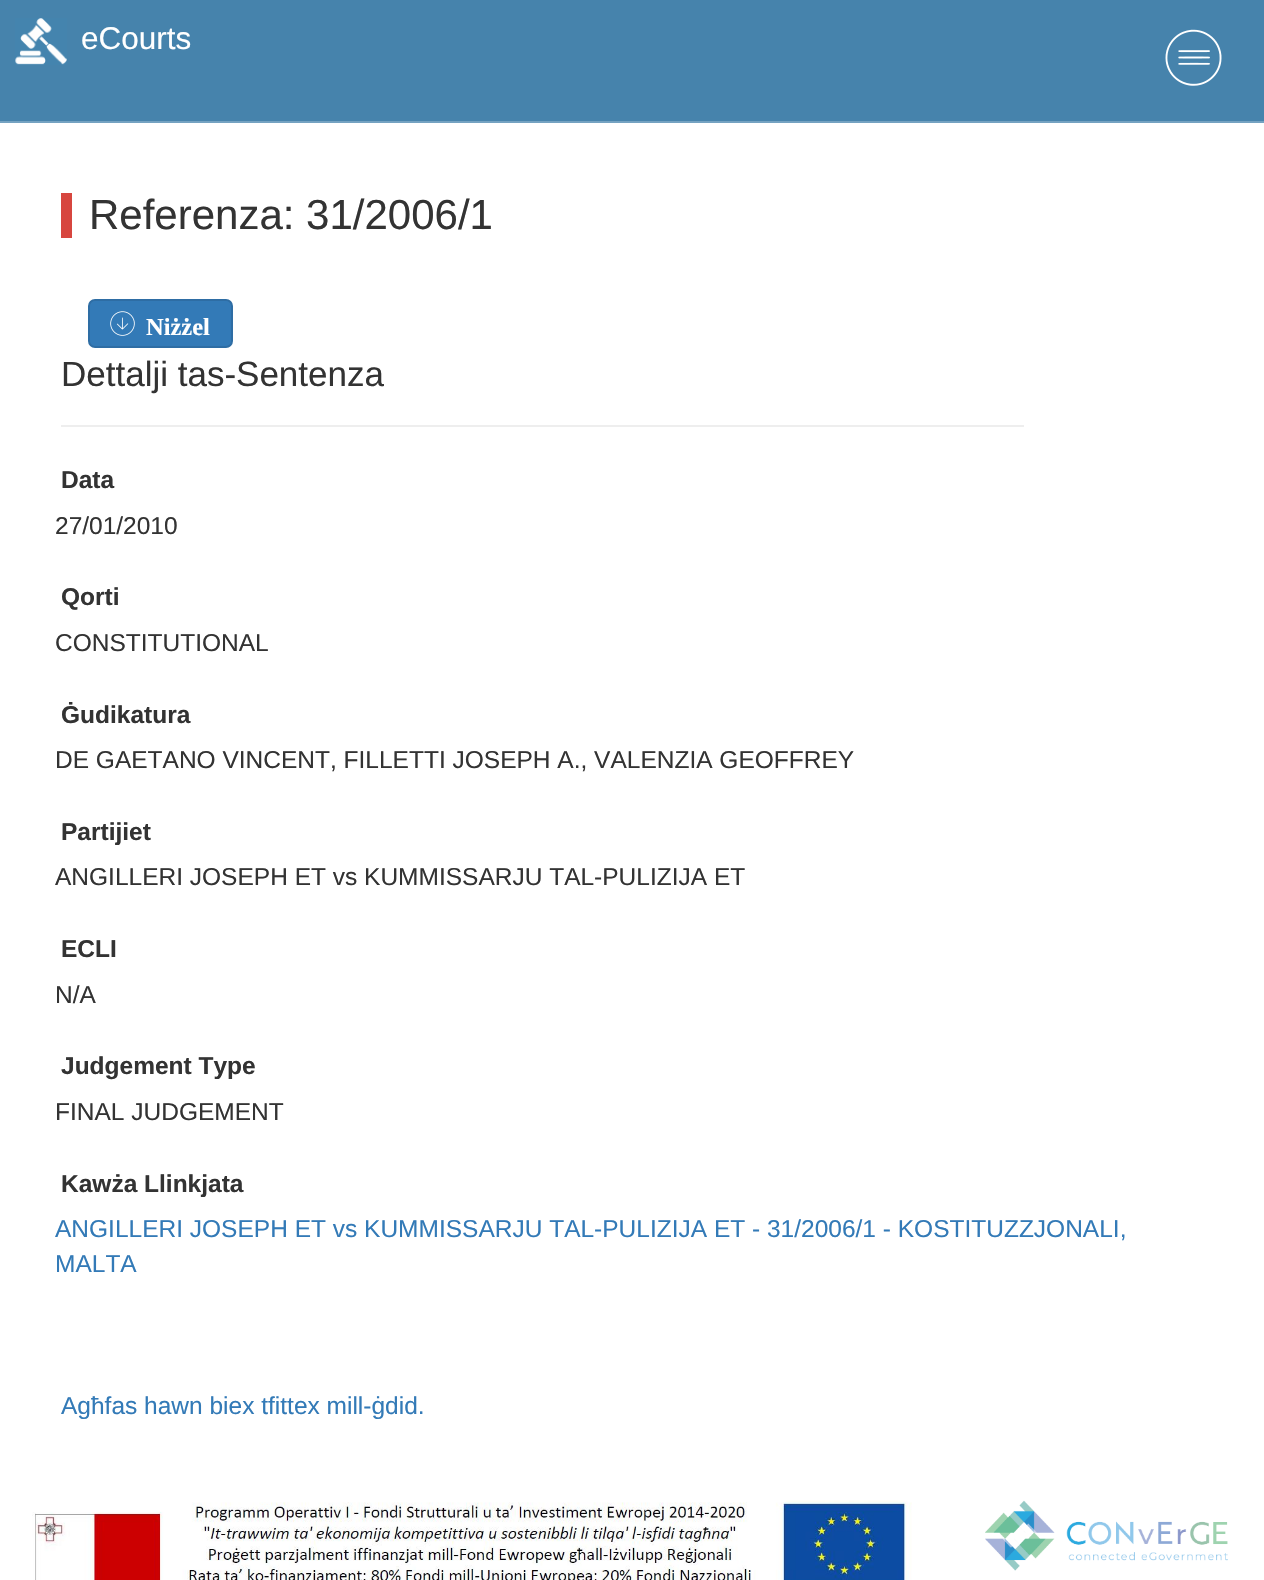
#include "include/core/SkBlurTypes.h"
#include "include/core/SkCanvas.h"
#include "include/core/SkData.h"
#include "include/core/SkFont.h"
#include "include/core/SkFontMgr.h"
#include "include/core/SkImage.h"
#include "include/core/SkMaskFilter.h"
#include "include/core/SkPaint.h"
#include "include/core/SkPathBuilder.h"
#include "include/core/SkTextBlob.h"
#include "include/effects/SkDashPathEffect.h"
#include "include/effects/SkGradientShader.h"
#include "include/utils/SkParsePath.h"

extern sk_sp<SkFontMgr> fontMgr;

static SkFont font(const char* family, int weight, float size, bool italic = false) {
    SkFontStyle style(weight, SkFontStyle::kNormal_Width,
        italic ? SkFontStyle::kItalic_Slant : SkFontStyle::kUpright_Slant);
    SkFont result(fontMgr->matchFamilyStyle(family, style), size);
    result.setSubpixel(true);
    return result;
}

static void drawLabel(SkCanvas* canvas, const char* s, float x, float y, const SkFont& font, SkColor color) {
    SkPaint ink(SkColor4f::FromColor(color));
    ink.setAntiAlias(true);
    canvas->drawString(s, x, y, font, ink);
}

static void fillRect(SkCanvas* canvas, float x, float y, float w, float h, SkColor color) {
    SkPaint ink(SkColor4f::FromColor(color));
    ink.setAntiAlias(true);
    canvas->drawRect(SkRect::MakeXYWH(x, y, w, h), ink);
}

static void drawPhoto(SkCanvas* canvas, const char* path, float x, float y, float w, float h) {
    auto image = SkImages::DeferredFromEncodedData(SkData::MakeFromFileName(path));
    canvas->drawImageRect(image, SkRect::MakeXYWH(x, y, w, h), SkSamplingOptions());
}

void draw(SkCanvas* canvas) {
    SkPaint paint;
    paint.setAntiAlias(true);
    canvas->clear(0xFFFFFFFF);
    fillRect(canvas, 0, 0, 1264, 121, 0xFF4683AC);
    fillRect(canvas, 0, 121, 1264, 2, 0xFF74A2C1);
    drawPhoto(canvas, "assets/img1.png", 15, 18, 52, 47);
    SkFont font1 = font("Liberation Sans", 400, 31.5f);
    drawLabel(canvas, "eCourts", 81, 49, font1, 0xFFFFFFFF);
    drawPhoto(canvas, "assets/img2.png", 1165, 29, 57, 57);
    fillRect(canvas, 61, 193, 11, 45, 0xFFD7463F);
    SkFont font2 = font("Liberation Sans", 400, 42);
    drawLabel(canvas, "Referenza: 31/2006/1", 89, 229, font2, 0xFF333333);
    paint.setColor(0xFF337AB7);
    canvas->drawRoundRect(SkRect::MakeXYWH(89, 300, 143, 47), 6, 6, paint);
    paint.setStroke(true);
    paint.setStrokeWidth(2);
    paint.setColor(0xFF2E6DA4);
    canvas->drawRoundRect(SkRect::MakeXYWH(89, 300, 143, 47), 6, 6, paint);
    drawPhoto(canvas, "assets/img3.png", 110, 311, 25, 25);
    SkFont font3 = font("Liberation Serif", 700, 24.5f);
    drawLabel(canvas, "Niżżel", 146, 335, font3, 0xFFFFFFFF);
    SkFont font4 = font("Liberation Sans", 400, 35);
    drawLabel(canvas, "Dettalji tas-Sentenza", 61, 386, font4, 0xFF333333);
    fillRect(canvas, 61, 425, 963, 2, 0xFFEEEEEE);
    SkFont font5 = font("Liberation Sans", 700, 24.5f);
    drawLabel(canvas, "Data", 61, 488, font5, 0xFF333333);
    SkFont font6 = font("Liberation Sans", 400, 24.5f);
    drawLabel(canvas, "27/01/2010", 55, 534, font6, 0xFF333333);
    drawLabel(canvas, "Qorti", 61, 605, font5, 0xFF333333);
    drawLabel(canvas, "CONSTITUTIONAL", 55, 651, font6, 0xFF333333);
    drawLabel(canvas, "Ġudikatura", 61, 723, font5, 0xFF333333);
    drawLabel(canvas, "DE GAETANO VINCENT, FILLETTI JOSEPH A., VALENZIA GEOFFREY", 55, 768, font6, 0xFF333333);
    drawLabel(canvas, "Partijiet", 61, 840, font5, 0xFF333333);
    drawLabel(canvas, "ANGILLERI JOSEPH ET vs KUMMISSARJU TAL-PULIZIJA ET", 55, 885, font6, 0xFF333333);
    drawLabel(canvas, "ECLI", 61, 957, font5, 0xFF333333);
    drawLabel(canvas, "N/A", 55, 1003, font6, 0xFF333333);
    drawLabel(canvas, "Judgement Type", 61, 1074, font5, 0xFF333333);
    drawLabel(canvas, "FINAL JUDGEMENT", 55, 1120, font6, 0xFF333333);
    drawLabel(canvas, "Kawża Llinkjata", 61, 1192, font5, 0xFF333333);
    drawLabel(canvas, "ANGILLERI JOSEPH ET vs KUMMISSARJU TAL-PULIZIJA ET - 31/2006/1 - KOSTITUZZJONALI,", 55, 1237, font6, 0xFF337AB7);
    drawLabel(canvas, "MALTA", 55, 1272, font6, 0xFF337AB7);
    drawLabel(canvas, "Agħfas hawn biex tfittex mill-ġdid.", 61, 1414, font6, 0xFF337AB7);
    drawPhoto(canvas, "assets/img4.png", 32, 1500, 880, 80);
    drawPhoto(canvas, "assets/img5.png", 985, 1500, 243, 71);
}
